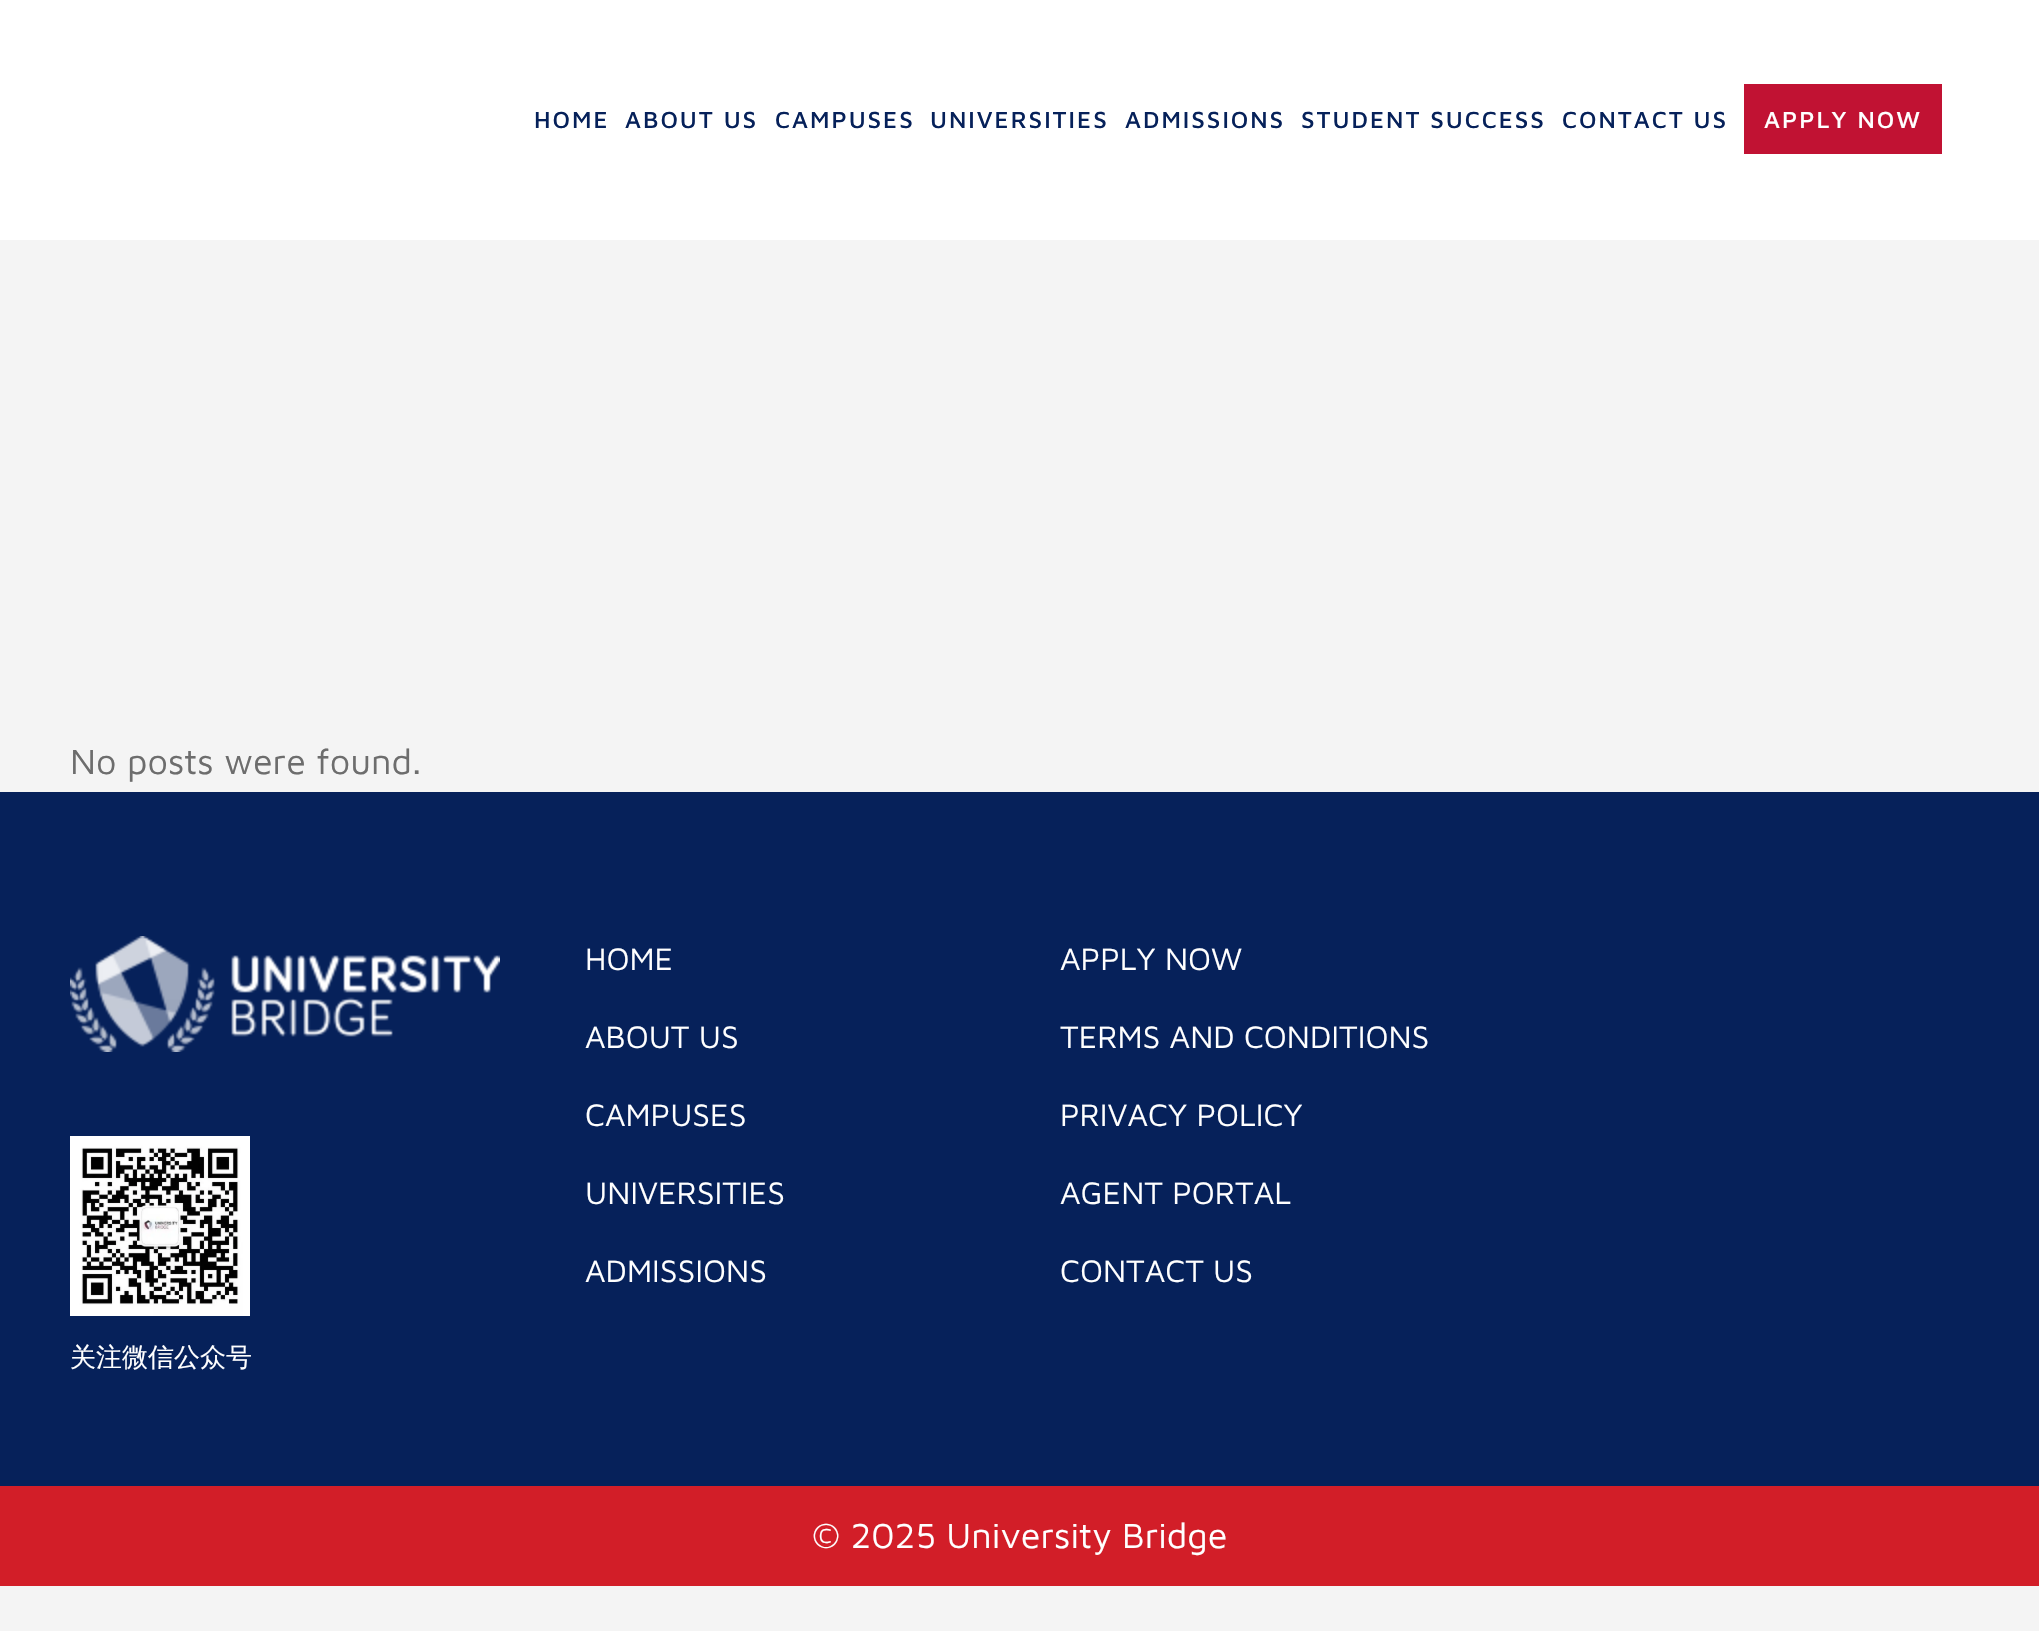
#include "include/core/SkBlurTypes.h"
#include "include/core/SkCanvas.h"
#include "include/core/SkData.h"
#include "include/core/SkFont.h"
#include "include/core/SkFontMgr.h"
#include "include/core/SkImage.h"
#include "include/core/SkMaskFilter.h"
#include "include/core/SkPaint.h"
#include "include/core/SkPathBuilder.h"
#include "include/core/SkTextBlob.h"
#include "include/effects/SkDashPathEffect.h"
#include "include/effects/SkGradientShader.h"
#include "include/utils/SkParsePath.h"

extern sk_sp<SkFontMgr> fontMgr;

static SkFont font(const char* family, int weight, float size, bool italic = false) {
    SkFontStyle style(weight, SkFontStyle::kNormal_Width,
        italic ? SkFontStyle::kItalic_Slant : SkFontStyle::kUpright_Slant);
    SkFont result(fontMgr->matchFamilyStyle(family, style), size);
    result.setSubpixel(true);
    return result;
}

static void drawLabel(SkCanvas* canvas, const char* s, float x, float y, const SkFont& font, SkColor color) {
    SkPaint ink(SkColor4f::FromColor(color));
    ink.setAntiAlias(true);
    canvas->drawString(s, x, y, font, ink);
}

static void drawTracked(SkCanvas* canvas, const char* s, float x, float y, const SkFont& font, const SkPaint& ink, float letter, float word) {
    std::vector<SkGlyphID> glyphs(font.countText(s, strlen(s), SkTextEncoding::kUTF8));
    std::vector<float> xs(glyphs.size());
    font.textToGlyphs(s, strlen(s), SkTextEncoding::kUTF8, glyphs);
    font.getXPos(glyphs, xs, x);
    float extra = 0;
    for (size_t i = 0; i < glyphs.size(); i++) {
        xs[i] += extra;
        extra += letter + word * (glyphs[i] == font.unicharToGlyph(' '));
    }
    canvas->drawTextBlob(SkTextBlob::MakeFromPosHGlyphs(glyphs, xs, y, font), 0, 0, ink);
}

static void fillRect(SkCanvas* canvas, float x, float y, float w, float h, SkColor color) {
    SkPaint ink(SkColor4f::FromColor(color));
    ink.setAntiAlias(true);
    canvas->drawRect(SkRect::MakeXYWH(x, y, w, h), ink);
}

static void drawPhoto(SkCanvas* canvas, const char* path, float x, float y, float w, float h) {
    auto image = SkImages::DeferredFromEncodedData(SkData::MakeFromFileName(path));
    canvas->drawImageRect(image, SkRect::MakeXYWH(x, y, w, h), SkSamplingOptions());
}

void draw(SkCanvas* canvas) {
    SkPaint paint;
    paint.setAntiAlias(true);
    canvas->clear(0xFFF4F4F4);
    fillRect(canvas, 0, 0, 2039, 240, 0xFFFFFFFF);
    SkFont font1 = font("Maven Pro", 500, 24);
    paint.setColor(0xFF06215A);
    drawTracked(canvas, "HOME", 534, 128, font1, paint, 2, 0);
    drawTracked(canvas, "ABOUT US", 625, 128, font1, paint, 2, 0);
    drawTracked(canvas, "CAMPUSES", 775, 128, font1, paint, 2, 0);
    drawTracked(canvas, "UNIVERSITIES", 930, 128, font1, paint, 2, 0);
    drawTracked(canvas, "ADMISSIONS", 1125, 128, font1, paint, 2, 0);
    drawTracked(canvas, "STUDENT SUCCESS", 1301, 128, font1, paint, 2, 0);
    drawTracked(canvas, "CONTACT US", 1562, 128, font1, paint, 2, 0);
    fillRect(canvas, 1744, 84, 198, 70, 0xFFC11233);
    paint.setColor(0xFFFFFFFF);
    drawTracked(canvas, "APPLY NOW", 1764, 128, font1, paint, 2, 0);
    SkFont font2 = font("Maven Pro", 400, 36);
    drawLabel(canvas, "No posts were found.", 70, 774, font2, 0xFF6D6D6D);
    fillRect(canvas, 0, 792, 2039, 694, 0xFF06215A);
    SkFont font3 = font("Maven Pro", 400, 32);
    drawLabel(canvas, "HOME", 585, 970, font3, 0xFFFFFFFF);
    drawLabel(canvas, "ABOUT US", 585, 1048, font3, 0xFFFFFFFF);
    drawLabel(canvas, "CAMPUSES", 585, 1126, font3, 0xFFFFFFFF);
    drawLabel(canvas, "UNIVERSITIES", 585, 1204, font3, 0xFFFFFFFF);
    drawLabel(canvas, "ADMISSIONS", 585, 1282, font3, 0xFFFFFFFF);
    drawLabel(canvas, "APPLY NOW", 1060, 970, font3, 0xFFFFFFFF);
    drawLabel(canvas, "TERMS AND CONDITIONS", 1060, 1048, font3, 0xFFFFFFFF);
    drawLabel(canvas, "PRIVACY POLICY", 1060, 1126, font3, 0xFFFFFFFF);
    drawLabel(canvas, "AGENT PORTAL", 1060, 1204, font3, 0xFFFFFFFF);
    drawLabel(canvas, "CONTACT US", 1060, 1282, font3, 0xFFFFFFFF);
    drawPhoto(canvas, "assets/img1.png", 70, 936, 430, 116);
    drawPhoto(canvas, "assets/img2.png", 70, 1136, 180, 180);
    SkFont font4 = font("WenQuanYi Zen Hei", 500, 26);
    drawLabel(canvas, "关注微信公众号", 70, 1366, font4, 0xFFFFFFFF);
    fillRect(canvas, 0, 1486, 2039, 100, 0xFFD21E28);
    drawLabel(canvas, "© 2025 University Bridge", 812, 1548, font2, 0xFFFFFFFF);
}
